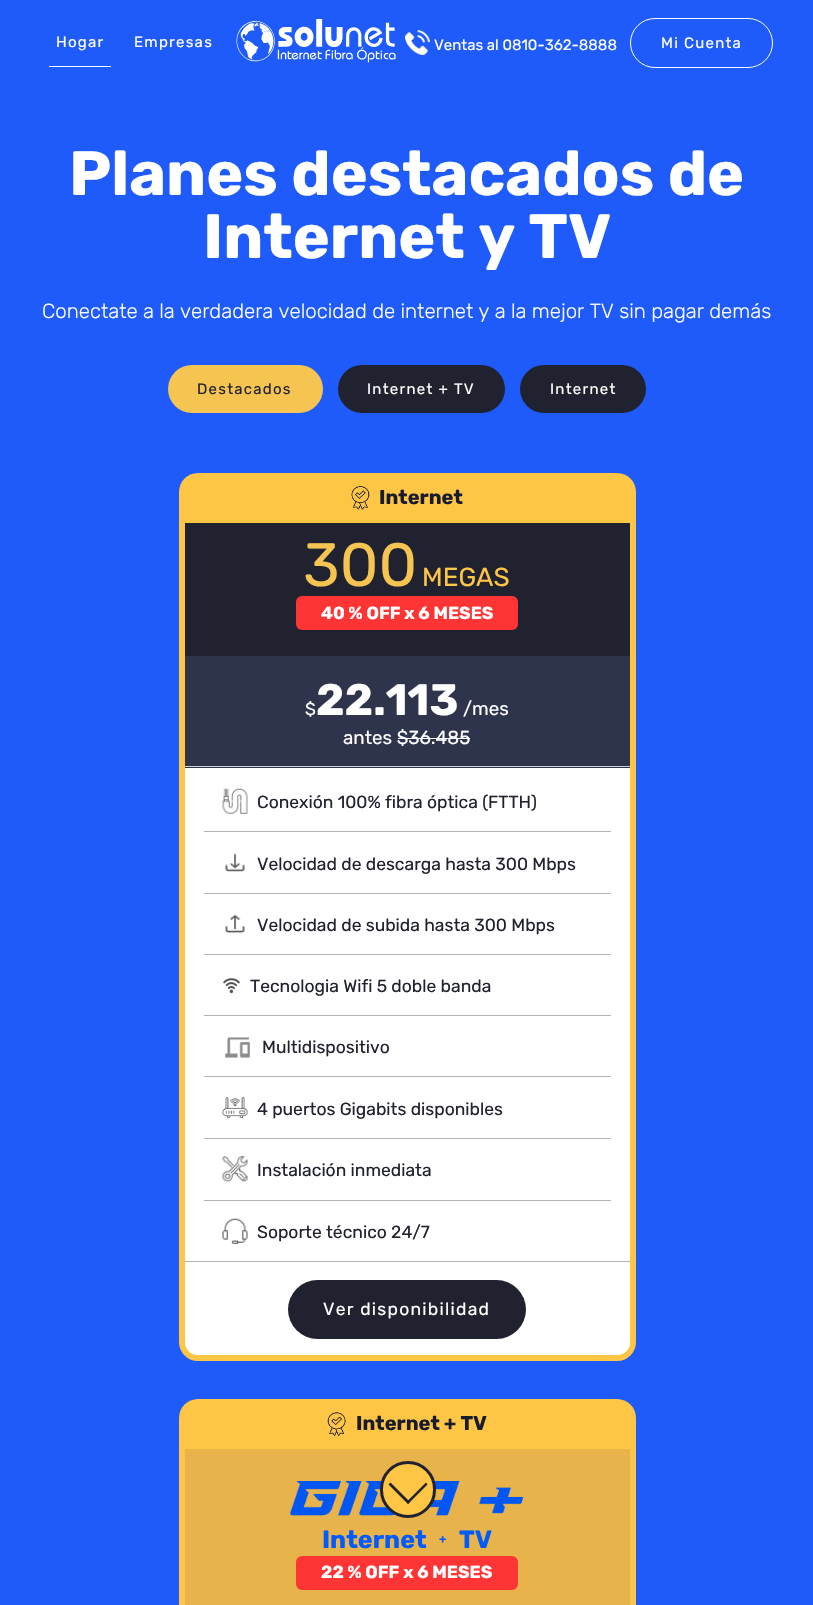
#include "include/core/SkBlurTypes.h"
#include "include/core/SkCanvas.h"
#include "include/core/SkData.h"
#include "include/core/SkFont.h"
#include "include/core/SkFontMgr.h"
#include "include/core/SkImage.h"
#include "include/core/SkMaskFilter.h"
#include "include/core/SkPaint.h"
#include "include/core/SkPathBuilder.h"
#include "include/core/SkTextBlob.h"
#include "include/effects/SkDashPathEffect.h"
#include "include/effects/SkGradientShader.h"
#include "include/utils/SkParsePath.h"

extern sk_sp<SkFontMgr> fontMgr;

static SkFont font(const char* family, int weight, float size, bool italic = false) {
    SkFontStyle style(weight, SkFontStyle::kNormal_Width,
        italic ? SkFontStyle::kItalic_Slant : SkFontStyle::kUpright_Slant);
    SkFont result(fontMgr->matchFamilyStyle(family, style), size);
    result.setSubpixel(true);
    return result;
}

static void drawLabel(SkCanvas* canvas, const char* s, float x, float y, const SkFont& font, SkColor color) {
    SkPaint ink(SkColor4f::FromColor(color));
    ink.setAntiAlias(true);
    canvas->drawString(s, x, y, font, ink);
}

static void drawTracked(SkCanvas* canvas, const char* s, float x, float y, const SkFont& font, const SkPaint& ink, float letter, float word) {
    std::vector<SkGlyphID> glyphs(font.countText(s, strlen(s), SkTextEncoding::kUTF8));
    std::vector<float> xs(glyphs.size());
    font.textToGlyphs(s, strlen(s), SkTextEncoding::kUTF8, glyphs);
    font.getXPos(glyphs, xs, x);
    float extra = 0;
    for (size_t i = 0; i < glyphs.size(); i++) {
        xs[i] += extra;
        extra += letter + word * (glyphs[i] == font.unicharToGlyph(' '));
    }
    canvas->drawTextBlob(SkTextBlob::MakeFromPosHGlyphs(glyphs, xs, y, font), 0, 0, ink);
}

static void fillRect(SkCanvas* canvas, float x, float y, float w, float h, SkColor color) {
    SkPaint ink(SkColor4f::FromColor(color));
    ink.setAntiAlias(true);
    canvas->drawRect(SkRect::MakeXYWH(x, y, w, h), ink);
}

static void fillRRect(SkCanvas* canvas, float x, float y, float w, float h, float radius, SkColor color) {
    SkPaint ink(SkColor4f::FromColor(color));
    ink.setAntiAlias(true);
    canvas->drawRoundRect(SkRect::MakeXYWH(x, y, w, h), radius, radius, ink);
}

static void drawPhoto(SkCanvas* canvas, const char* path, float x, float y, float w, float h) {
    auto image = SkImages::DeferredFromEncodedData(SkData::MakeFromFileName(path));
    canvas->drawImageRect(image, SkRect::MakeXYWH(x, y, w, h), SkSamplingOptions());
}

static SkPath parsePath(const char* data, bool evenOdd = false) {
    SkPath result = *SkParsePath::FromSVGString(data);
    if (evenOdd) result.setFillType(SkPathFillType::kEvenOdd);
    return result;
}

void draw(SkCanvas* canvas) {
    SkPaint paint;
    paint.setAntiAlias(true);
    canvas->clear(0xFF1E5BFA);
    fillRect(canvas, 49, 66, 62, 1, 0xFFFFFFFF);
    SkFont font1 = font("Rubik", 400, 15);
    paint.setColor(0xFFFFFFFF);
    drawTracked(canvas, "Hogar", 56, 47, font1, paint, 1.25f, 0);
    drawTracked(canvas, "Empresas", 134, 47, font1, paint, 1.25f, 0);
    drawPhoto(canvas, "assets/img1.png", 236, 19, 160, 44);
    drawPhoto(canvas, "assets/img2.png", 405, 30, 25, 25);
    drawLabel(canvas, "Ventas al 0810-362-8888", 434, 50, font1, 0xFFFFFFFF);
    paint.setStroke(true);
    paint.setStrokeWidth(1);
    canvas->drawRoundRect(SkRect::MakeXYWH(630.5f, 18.5f, 142, 49), 24.5f, 24.5f, paint);
    paint.setStroke(false);
    drawTracked(canvas, "Mi Cuenta", 661, 48, font1, paint, 1.25f, 0);
    SkFont font2 = font("Rubik", 700, 62.5f);
    drawLabel(canvas, "Planes destacados de", 69, 195, font2, 0xFFFFFFFF);
    drawLabel(canvas, "Internet y TV", 203, 258, font2, 0xFFFFFFFF);
    SkFont font3 = font("Rubik", 300, 20.45f);
    drawLabel(canvas, "Conectate a la verdadera velocidad de internet y a la mejor TV sin pagar demás", 42, 318, font3, 0xFFFFFFFF);
    fillRRect(canvas, 168, 365, 155, 48, 24, 0xFFF6C451);
    paint.setColor(0xFF20222F);
    drawTracked(canvas, "Destacados", 197, 394, font1, paint, 1.25f, 0);
    fillRRect(canvas, 338, 365, 167, 48, 24, 0xFF20222F);
    paint.setColor(0xFFFFFFFF);
    drawTracked(canvas, "Internet + TV", 367, 394, font1, paint, 1.25f, 0);
    fillRRect(canvas, 520, 365, 126, 48, 24, 0xFF20222F);
    drawTracked(canvas, "Internet", 550, 394, font1, paint, 1.25f, 0);
    canvas->drawRoundRect(SkRect::MakeXYWH(182, 501, 451, 857), 16, 16, paint);
    paint.setStroke(true);
    paint.setStrokeWidth(6);
    paint.setColor(0xFFFFC545);
    canvas->drawRoundRect(SkRect::MakeXYWH(182, 501, 451, 857), 16, 16, paint);
    paint.setStroke(false);
    canvas->drawPath(parsePath("M198 473H617C627.5 473 636 481.5 636 492V523H179V492C179 481.5 187.5 473 198 473Z"), paint);
    drawPhoto(canvas, "assets/img3.png", 351, 486, 19, 24);
    SkFont font4 = font("Rubik", 700, 20);
    drawLabel(canvas, "Internet", 379, 504, font4, 0xFF191C2C);
    fillRect(canvas, 185, 523, 445, 133, 0xFF20222F);
    SkFont font5 = font("Rubik", 400, 61);
    drawLabel(canvas, "300", 303, 586, font5, 0xFFF6C451);
    SkFont font6 = font("Rubik", 400, 26);
    drawLabel(canvas, "MEGAS", 422, 586, font6, 0xFFFFC545);
    fillRRect(canvas, 296, 596, 222, 34, 6, 0xFFFF3434);
    SkFont font7 = font("Rubik", 700, 17.5f);
    drawLabel(canvas, "40 % OFF x 6 MESES", 321, 619, font7, 0xFFFFFFFF);
    fillRect(canvas, 185, 656, 445, 112, 0xFF2F344D);
    fillRect(canvas, 185, 766, 445, 1, 0xFFD3D3D3);
    SkFont font8 = font("Rubik", 400, 17.5f);
    drawLabel(canvas, "$", 305, 715, font8, 0xFFFFFFFF);
    SkFont font9 = font("Rubik", 700, 44);
    drawLabel(canvas, "22.113", 316, 715, font9, 0xFFFFFFFF);
    SkFont font10 = font("Rubik", 400, 18.75f);
    drawLabel(canvas, "/mes", 463, 715, font10, 0xFFFFFFFF);
    drawLabel(canvas, "antes $36.485", 343, 744, font10, 0xFFFFFFFF);
    fillRect(canvas, 398, 738, 72, 1, 0xFFFFFFFF);
    fillRect(canvas, 204, 831, 407, 1, 0xFFB3B1B1);
    drawPhoto(canvas, "assets/img4.png", 222, 788, 26, 26);
    drawLabel(canvas, "Conexión 100% fibra óptica (FTTH)", 257, 808, font8, 0xFF20222F);
    fillRect(canvas, 204, 893, 407, 1, 0xFFB3B1B1);
    drawPhoto(canvas, "assets/img5.png", 225, 853, 20, 19);
    drawLabel(canvas, "Velocidad de descarga hasta 300 Mbps", 257, 870, font8, 0xFF20222F);
    fillRect(canvas, 204, 954, 407, 1, 0xFFB3B1B1);
    drawPhoto(canvas, "assets/img6.png", 225, 914, 20, 20);
    drawLabel(canvas, "Velocidad de subida hasta 300 Mbps", 257, 931, font8, 0xFF20222F);
    fillRect(canvas, 204, 1015, 407, 1, 0xFFB3B1B1);
    drawPhoto(canvas, "assets/img7.png", 223, 977, 17, 17);
    drawLabel(canvas, "Tecnologia Wifi 5 doble banda", 250, 992, font8, 0xFF20222F);
    fillRect(canvas, 204, 1076, 407, 1, 0xFFB3B1B1);
    drawPhoto(canvas, "assets/img8.png", 225, 1037, 25, 21);
    drawLabel(canvas, "Multidispositivo", 262, 1053, font8, 0xFF20222F);
    fillRect(canvas, 204, 1138, 407, 1, 0xFFB3B1B1);
    drawPhoto(canvas, "assets/img9.png", 222, 1096, 26, 23);
    drawLabel(canvas, "4 puertos Gigabits disponibles", 257, 1115, font8, 0xFF20222F);
    drawPhoto(canvas, "assets/img10.png", 222, 1156, 26, 26);
    drawLabel(canvas, "Instalación inmediata", 257, 1176, font8, 0xFF20222F);
    fillRect(canvas, 204, 1200, 407, 1, 0xFFB3B1B1);
    drawPhoto(canvas, "assets/img11.png", 222, 1218, 26, 26);
    drawLabel(canvas, "Soporte técnico 24/7", 257, 1238, font8, 0xFF20222F);
    paint.setColor(0xFFFFFFFF);
    canvas->drawPath(parsePath("M185 1261H630V1342C630 1349 624 1355 617 1355H198C191 1355 185 1349 185 1342Z"), paint);
    fillRect(canvas, 185, 1261, 445, 1, 0xFFB3B1B1);
    fillRRect(canvas, 288, 1280, 238, 59, 29.5f, 0xFF20222F);
    drawTracked(canvas, "Ver disponibilidad", 323, 1315, font8, paint, 1.25f, 0);
    paint.setStroke(true);
    paint.setColor(0xFFFFC545);
    canvas->drawRect(SkRect::MakeXYWH(182, 1427, 451, 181), paint);
    paint.setStroke(false);
    canvas->drawPath(parsePath("M198 1399H617C627.5 1399 636 1407.5 636 1418V1449H179V1418C179 1407.5 187.5 1399 198 1399Z"), paint);
    drawPhoto(canvas, "assets/img12.png", 327, 1412, 19, 24);
    drawLabel(canvas, "Internet + TV", 356, 1430, font4, 0xFF191C2C);
    fillRect(canvas, 185, 1449, 445, 156, 0xFFE7B34A);
    drawPhoto(canvas, "assets/img13.png", 289, 1481, 235, 35);
    SkFont font11 = font("Rubik", 700, 25);
    drawLabel(canvas, "Internet", 322, 1548, font11, 0xFF005BFE);
    SkFont font12 = font("Rubik", 700, 12);
    drawLabel(canvas, "+", 439, 1543, font12, 0xFF005BFE);
    drawLabel(canvas, "TV", 459, 1548, font11, 0xFF005BFE);
    fillRRect(canvas, 296, 1556, 222, 34, 6, 0xFFFF3434);
    drawLabel(canvas, "22 % OFF x 6 MESES", 321, 1578, font7, 0xFFFFFFFF);
    canvas->drawRoundRect(SkRect::MakeXYWH(381.5f, 1462.5f, 53, 54), 26.5f, 26.5f, paint);
    paint.setStroke(true);
    paint.setStrokeWidth(3);
    paint.setColor(0xFF20222F);
    canvas->drawRoundRect(SkRect::MakeXYWH(381.5f, 1462.5f, 53, 54), 26.5f, 26.5f, paint);
    paint.setStroke(false);
    canvas->drawPath(parsePath("M426 1482.5L427.5 1484.5L408 1504L406.5 1502Z"), paint);
    canvas->drawPath(parsePath("M390.5 1482.5L410 1502L408 1504L388.5 1484.5Z"), paint);
}
